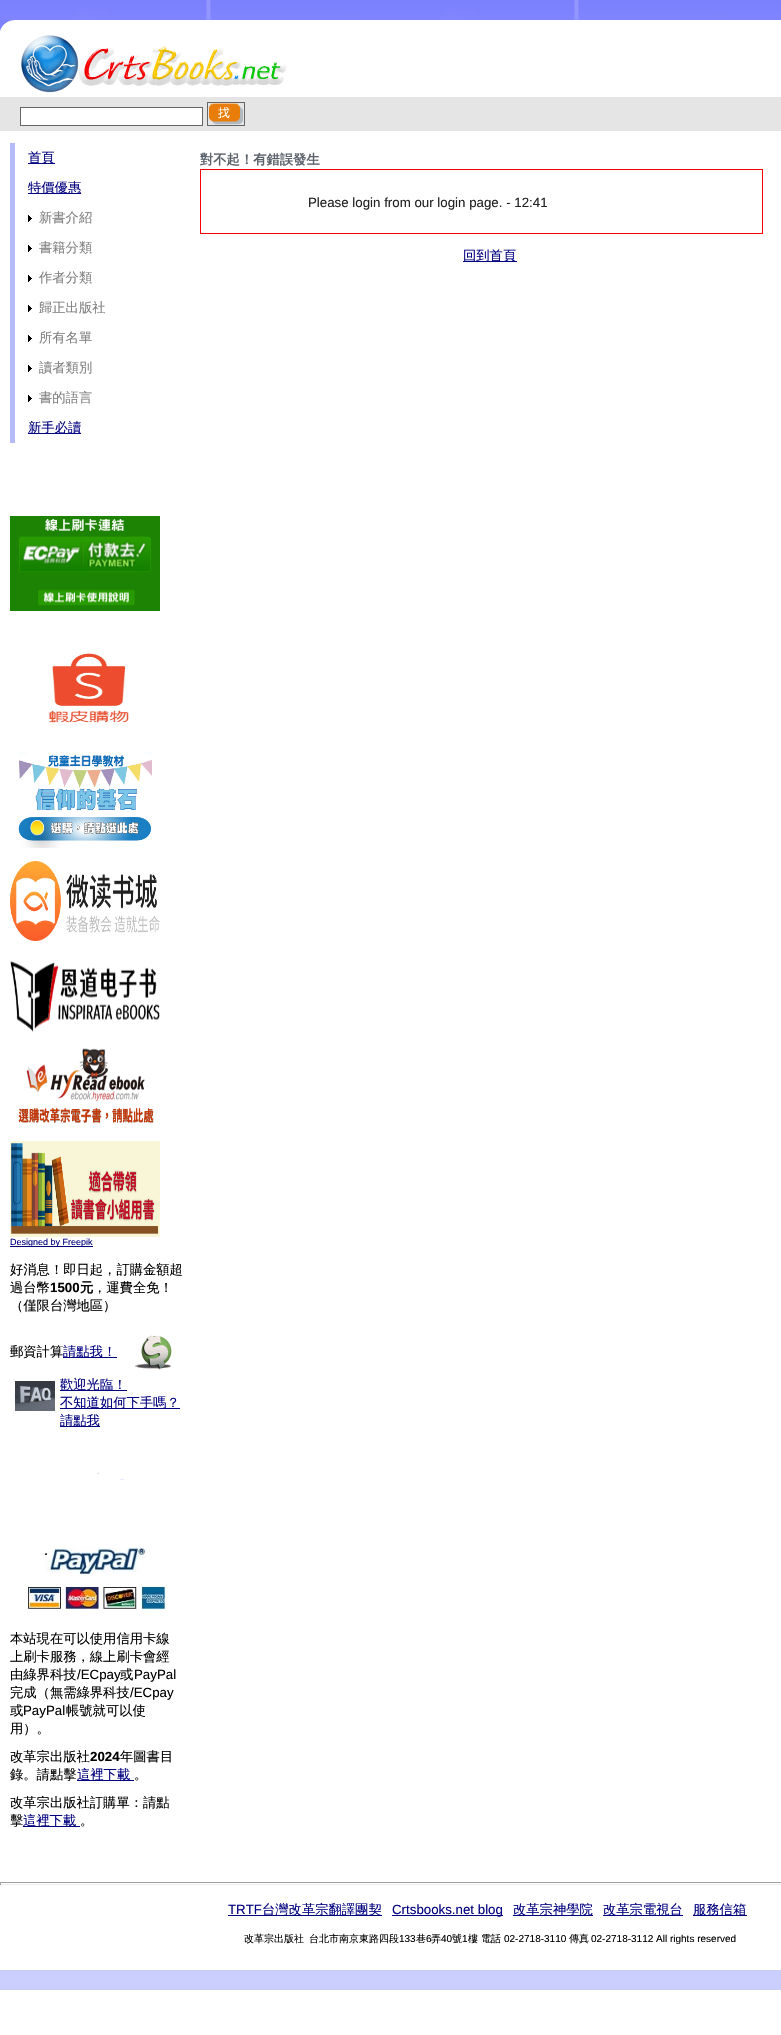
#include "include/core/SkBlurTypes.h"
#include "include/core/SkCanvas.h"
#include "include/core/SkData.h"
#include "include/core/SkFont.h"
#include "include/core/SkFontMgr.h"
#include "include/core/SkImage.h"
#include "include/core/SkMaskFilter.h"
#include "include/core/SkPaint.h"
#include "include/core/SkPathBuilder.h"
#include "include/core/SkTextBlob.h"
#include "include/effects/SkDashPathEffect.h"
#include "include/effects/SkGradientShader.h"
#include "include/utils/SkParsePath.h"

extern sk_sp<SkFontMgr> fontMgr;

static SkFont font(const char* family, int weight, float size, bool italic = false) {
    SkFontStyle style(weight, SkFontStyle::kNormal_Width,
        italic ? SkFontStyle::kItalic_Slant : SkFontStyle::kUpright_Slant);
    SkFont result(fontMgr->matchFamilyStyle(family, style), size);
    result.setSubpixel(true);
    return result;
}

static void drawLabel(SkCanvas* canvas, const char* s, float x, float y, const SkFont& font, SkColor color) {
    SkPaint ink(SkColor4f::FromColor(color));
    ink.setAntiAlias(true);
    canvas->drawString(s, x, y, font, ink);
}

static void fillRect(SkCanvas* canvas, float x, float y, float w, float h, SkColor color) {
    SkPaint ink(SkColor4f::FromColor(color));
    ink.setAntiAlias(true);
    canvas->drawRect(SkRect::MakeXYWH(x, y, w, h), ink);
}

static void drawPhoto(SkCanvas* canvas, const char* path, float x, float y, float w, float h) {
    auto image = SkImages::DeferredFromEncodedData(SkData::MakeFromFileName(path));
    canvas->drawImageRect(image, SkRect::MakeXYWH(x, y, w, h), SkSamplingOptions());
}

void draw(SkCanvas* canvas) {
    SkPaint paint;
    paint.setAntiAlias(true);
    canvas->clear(0xFFFFFFFF);
    fillRect(canvas, 0, 1970, 781, 20, 0xFFCACFFE);
    drawPhoto(canvas, "assets/img1.png", 0, 0, 781, 20);
    drawPhoto(canvas, "assets/img2.png", 0, 20, 14, 11);
    drawPhoto(canvas, "assets/img3.png", 21, 35, 266, 58);
    fillRect(canvas, 0, 97, 781, 34, 0xFFE5E5E5);
    paint.setColor(0xFFFFFFFF);
    canvas->drawRect(SkRect::MakeXYWH(20.5f, 107.5f, 182, 18), paint);
    paint.setStroke(true);
    paint.setStrokeWidth(1);
    paint.setColor(0xFF666666);
    canvas->drawRect(SkRect::MakeXYWH(20.5f, 107.5f, 182, 18), paint);
    canvas->drawRect(SkRect::MakeXYWH(207.5f, 102.5f, 37, 23), paint);
    drawPhoto(canvas, "assets/img4.png", 209, 103, 34, 22);
    fillRect(canvas, 10, 143, 5, 300, 0xFFB5BAF8);
    fillRect(canvas, 28, 163, 27, 1, 0xFF000080);
    SkFont font1 = font("WenQuanYi Zen Hei", 500, 13.3f);
    drawLabel(canvas, "首頁", 28, 162, font1, 0xFF000080);
    fillRect(canvas, 28, 193, 53, 1, 0xFF000080);
    drawLabel(canvas, "特價優惠", 28, 192, font1, 0xFF000080);
    drawPhoto(canvas, "assets/img5.png", 28, 215, 4, 7);
    drawLabel(canvas, "新書介紹", 39, 222, font1, 0xFF808080);
    drawPhoto(canvas, "assets/img5.png", 28, 245, 4, 7);
    drawLabel(canvas, "書籍分類", 39, 252, font1, 0xFF808080);
    drawPhoto(canvas, "assets/img5.png", 28, 275, 4, 7);
    drawLabel(canvas, "作者分類", 39, 282, font1, 0xFF808080);
    drawPhoto(canvas, "assets/img5.png", 28, 305, 4, 7);
    drawLabel(canvas, "歸正出版社", 39, 312, font1, 0xFF808080);
    drawPhoto(canvas, "assets/img5.png", 28, 335, 4, 7);
    drawLabel(canvas, "所有名單", 39, 342, font1, 0xFF808080);
    drawPhoto(canvas, "assets/img5.png", 28, 365, 4, 7);
    drawLabel(canvas, "讀者類別", 39, 372, font1, 0xFF808080);
    drawPhoto(canvas, "assets/img5.png", 28, 395, 4, 7);
    drawLabel(canvas, "書的語言", 39, 402, font1, 0xFF808080);
    fillRect(canvas, 28, 433, 53, 1, 0xFF000080);
    drawLabel(canvas, "新手必讀", 28, 432, font1, 0xFF000080);
    drawPhoto(canvas, "assets/img6.png", 10, 516, 150, 65);
    drawPhoto(canvas, "assets/img7.png", 10, 581, 150, 30);
    drawPhoto(canvas, "assets/img8.png", 48, 653, 81, 70);
    drawPhoto(canvas, "assets/img9.png", 18, 752, 134, 96);
    drawPhoto(canvas, "assets/img10.png", 10, 861, 150, 80);
    drawPhoto(canvas, "assets/img11.png", 10, 961, 150, 71);
    drawPhoto(canvas, "assets/img12.png", 18, 1048, 136, 75);
    drawPhoto(canvas, "assets/img13.png", 10, 1141, 150, 96);
    fillRect(canvas, 10, 1246, 83, 1, 0xFF000080);
    SkFont font2 = font("Liberation Sans", 400, 9);
    drawLabel(canvas, "Designed by Freepik", 10, 1245, font2, 0xFF000080);
    drawLabel(canvas, "好消息！即日起，訂購金額超", 10, 1274, font1, 0xFF000000);
    drawLabel(canvas, "過台幣", 10, 1292, font1, 0xFF000000);
    SkFont font3 = font("Liberation Sans", 700, 13.3f);
    drawLabel(canvas, "1500", 50, 1292, font3, 0xFF000000);
    SkFont font4 = font("WenQuanYi Zen Hei", 700, 13.3f);
    drawLabel(canvas, "元", 80, 1292, font4, 0xFF000000);
    drawLabel(canvas, "，運費全免！", 93, 1292, font1, 0xFF000000);
    drawLabel(canvas, "（僅限台灣地區）", 10, 1310, font1, 0xFF000000);
    drawLabel(canvas, "郵資計算", 10, 1356, font1, 0xFF000000);
    fillRect(canvas, 63, 1357, 54, 1, 0xFF000080);
    drawLabel(canvas, "請點我！", 63, 1356, font1, 0xFF000080);
    drawPhoto(canvas, "assets/img14.png", 135, 1335, 37, 35);
    drawPhoto(canvas, "assets/img15.png", 15, 1381, 40, 30);
    fillRect(canvas, 60, 1390, 67, 1, 0xFF000080);
    drawLabel(canvas, "歡迎光臨！", 60, 1389, font1, 0xFF000080);
    fillRect(canvas, 60, 1408, 120, 1, 0xFF000080);
    drawLabel(canvas, "不知道如何下手嗎？", 60, 1407, font1, 0xFF000080);
    fillRect(canvas, 60, 1426, 40, 1, 0xFF000080);
    drawLabel(canvas, "請點我", 60, 1425, font1, 0xFF000080);
    drawPhoto(canvas, "assets/img16.png", 28, 1473, 138, 137);
    drawLabel(canvas, "本站現在可以使用信用卡線", 10, 1643, font1, 0xFF000000);
    drawLabel(canvas, "上刷卡服務，線上刷卡會經", 10, 1661, font1, 0xFF000000);
    drawLabel(canvas, "由綠界科技", 10, 1679, font1, 0xFF000000);
    SkFont font5 = font("Liberation Sans", 400, 13.3f);
    drawLabel(canvas, "/ECpay", 77, 1679, font5, 0xFF000000);
    drawLabel(canvas, "或", 120, 1679, font1, 0xFF000000);
    drawLabel(canvas, "PayPal", 134, 1679, font5, 0xFF000000);
    drawLabel(canvas, "完成（無需綠界科技", 10, 1697, font1, 0xFF000000);
    drawLabel(canvas, "/ECpay", 130, 1697, font5, 0xFF000000);
    drawLabel(canvas, "或", 10, 1715, font1, 0xFF000000);
    drawLabel(canvas, "PayPal", 23, 1715, font5, 0xFF000000);
    drawLabel(canvas, "帳號就可以使", 66, 1715, font1, 0xFF000000);
    drawLabel(canvas, "用）。", 10, 1733, font1, 0xFF000000);
    drawLabel(canvas, "改革宗出版社", 10, 1761, font1, 0xFF000000);
    drawLabel(canvas, "2024", 90, 1761, font3, 0xFF000000);
    drawLabel(canvas, "年圖書目", 120, 1761, font1, 0xFF000000);
    drawLabel(canvas, "錄。請點擊", 10, 1779, font1, 0xFF000000);
    fillRect(canvas, 77, 1780, 57, 1, 0xFF000080);
    drawLabel(canvas, "這裡下載", 77, 1779, font1, 0xFF000080);
    drawLabel(canvas, "。", 134, 1779, font1, 0xFF000000);
    drawLabel(canvas, "改革宗出版社訂購單：請點", 10, 1807, font1, 0xFF000000);
    drawLabel(canvas, "擊", 10, 1825, font1, 0xFF000000);
    fillRect(canvas, 23, 1826, 57, 1, 0xFF000080);
    drawLabel(canvas, "這裡下載", 23, 1825, font1, 0xFF000080);
    drawLabel(canvas, "。", 80, 1825, font1, 0xFF000000);
    drawLabel(canvas, "對不起！有錯誤發生", 200, 164, font4, 0xFF5B626C);
    paint.setColor(0xFFFF0000);
    canvas->drawRect(SkRect::MakeXYWH(200.5f, 169.5f, 562, 64), paint);
    drawLabel(canvas, "Please login from our login page. - 12:41", 308, 207, font5, 0xFF222222);
    fillRect(canvas, 463, 261, 54, 1, 0xFF000080);
    drawLabel(canvas, "回到首頁", 463, 260, font1, 0xFF000080);
    fillRect(canvas, 0, 1882, 781, 1, 0xFF9F9F9F);
    fillRect(canvas, 0, 1884, 781, 1, 0xFFEEEEEE);
    fillRect(canvas, 0, 1882, 1, 3, 0xFF9F9F9F);
    drawLabel(canvas, "TRTF", 228, 1914, font5, 0xFF000080);
    fillRect(canvas, 228, 1915, 154, 1, 0xFF000080);
    drawLabel(canvas, "台灣改革宗翻譯團契", 262, 1914, font1, 0xFF000080);
    fillRect(canvas, 392, 1915, 111, 1, 0xFF000080);
    drawLabel(canvas, "Crtsbooks.net blog", 392, 1914, font5, 0xFF000080);
    fillRect(canvas, 513, 1915, 80, 1, 0xFF000080);
    drawLabel(canvas, "改革宗神學院", 513, 1914, font1, 0xFF000080);
    fillRect(canvas, 603, 1915, 80, 1, 0xFF000080);
    drawLabel(canvas, "改革宗電視台", 603, 1914, font1, 0xFF000080);
    fillRect(canvas, 693, 1915, 54, 1, 0xFF000080);
    drawLabel(canvas, "服務信箱", 693, 1914, font1, 0xFF000080);
    SkFont font6 = font("WenQuanYi Zen Hei", 500, 10);
    drawLabel(canvas, "改革宗出版社", 244, 1942, font6, 0xFF000000);
    drawLabel(canvas, "台北市南京東路四段", 309, 1942, font6, 0xFF000000);
    SkFont font7 = font("Liberation Sans", 400, 10);
    drawLabel(canvas, "133", 399, 1942, font7, 0xFF000000);
    drawLabel(canvas, "巷", 416, 1942, font6, 0xFF000000);
    drawLabel(canvas, "6", 426, 1942, font7, 0xFF000000);
    drawLabel(canvas, "弄", 431, 1942, font6, 0xFF000000);
    drawLabel(canvas, "40", 441, 1942, font7, 0xFF000000);
    drawLabel(canvas, "號", 452, 1942, font6, 0xFF000000);
    drawLabel(canvas, "1", 462, 1942, font7, 0xFF000000);
    drawLabel(canvas, "樓 電話", 468, 1942, font6, 0xFF000000);
    drawLabel(canvas, "02-2718-3110", 504, 1942, font7, 0xFF000000);
    drawLabel(canvas, "傳真", 569, 1942, font6, 0xFF000000);
    drawLabel(canvas, "02-2718-3112 All rights reserved", 591, 1942, font7, 0xFF000000);
}
